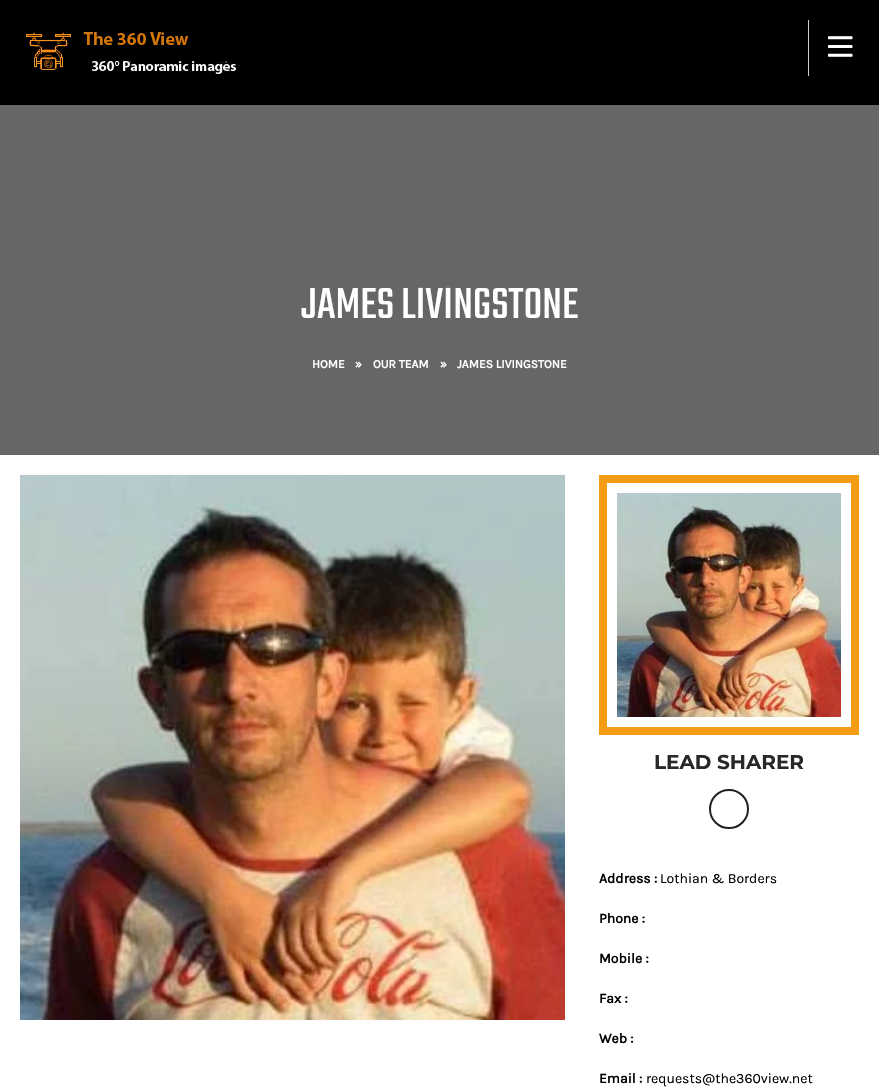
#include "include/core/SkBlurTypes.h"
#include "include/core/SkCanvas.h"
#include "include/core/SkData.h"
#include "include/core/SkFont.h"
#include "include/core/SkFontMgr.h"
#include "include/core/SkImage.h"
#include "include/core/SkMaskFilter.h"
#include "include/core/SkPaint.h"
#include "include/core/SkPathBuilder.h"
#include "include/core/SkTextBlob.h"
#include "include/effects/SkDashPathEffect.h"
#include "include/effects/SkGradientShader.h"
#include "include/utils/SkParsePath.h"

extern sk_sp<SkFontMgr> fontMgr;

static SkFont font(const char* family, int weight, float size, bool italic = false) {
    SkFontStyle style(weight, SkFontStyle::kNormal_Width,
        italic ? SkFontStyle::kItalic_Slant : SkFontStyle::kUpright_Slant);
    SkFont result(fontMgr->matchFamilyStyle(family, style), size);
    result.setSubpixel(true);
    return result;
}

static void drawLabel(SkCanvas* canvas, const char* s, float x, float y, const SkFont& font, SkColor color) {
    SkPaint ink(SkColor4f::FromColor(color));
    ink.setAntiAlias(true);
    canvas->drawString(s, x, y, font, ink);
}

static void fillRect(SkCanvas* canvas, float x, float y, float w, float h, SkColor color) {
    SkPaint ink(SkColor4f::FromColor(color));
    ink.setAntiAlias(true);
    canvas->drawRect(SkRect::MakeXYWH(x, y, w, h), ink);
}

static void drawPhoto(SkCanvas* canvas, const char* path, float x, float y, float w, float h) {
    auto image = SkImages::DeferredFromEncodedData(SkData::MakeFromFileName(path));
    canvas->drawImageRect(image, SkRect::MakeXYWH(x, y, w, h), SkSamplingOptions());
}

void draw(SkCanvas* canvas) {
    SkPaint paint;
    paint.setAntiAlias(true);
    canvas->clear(0xFFFFFFFF);
    fillRect(canvas, 0, 0, 879, 105, 0xFF000000);
    drawPhoto(canvas, "assets/img1.png", 26, 32, 210, 42);
    fillRect(canvas, 808, 20, 1, 56, 0xFFCCCCCC);
    drawPhoto(canvas, "assets/img2.png", 828, 36, 25, 21);
    fillRect(canvas, 0, 105, 879, 350, 0xFF666666);
    SkFont font1 = font("Teko", 300, 48);
    drawLabel(canvas, "JAMES LIVINGSTONE", 301, 318, font1, 0xFFFFFFFF);
    SkFont font2 = font("Karla", 700, 12);
    drawLabel(canvas, "HOME", 312, 368, font2, 0xFFFFFFFF);
    drawLabel(canvas, "»", 355, 368, font2, 0xFFFFFFFF);
    drawLabel(canvas, "OUR TEAM", 373, 368, font2, 0xFFFFFFFF);
    drawLabel(canvas, "»", 440, 368, font2, 0xFFFFFFFF);
    drawLabel(canvas, "JAMES LIVINGSTONE", 457, 368, font2, 0xFFFFFFFF);
    drawPhoto(canvas, "assets/img3.png", 20, 475, 545, 545);
    paint.setStroke(true);
    paint.setStrokeWidth(8);
    paint.setColor(0xFFF49C14);
    canvas->drawRect(SkRect::MakeXYWH(603, 479, 252, 252), paint);
    drawPhoto(canvas, "assets/img4.png", 617, 493, 224, 224);
    SkFont font3 = font("Montserrat", 700, 20);
    drawLabel(canvas, "LEAD SHARER", 654, 769, font3, 0xFF282828);
    paint.setStrokeWidth(2);
    paint.setColor(0xFF212121);
    canvas->drawCircle(729, 809, 19, paint);
    SkFont font4 = font("Karla", 700, 14);
    drawLabel(canvas, "Address :", 599, 883, font4, 0xFF000000);
    SkFont font5 = font("Karla", 400, 14);
    drawLabel(canvas, "Lothian & Borders", 660, 883, font5, 0xFF000000);
    drawLabel(canvas, "Phone :", 599, 923, font4, 0xFF000000);
    drawLabel(canvas, "Mobile :", 599, 963, font4, 0xFF000000);
    drawLabel(canvas, "Fax :", 599, 1003, font4, 0xFF000000);
    drawLabel(canvas, "Web :", 599, 1043, font4, 0xFF000000);
    drawLabel(canvas, "Email :", 599, 1083, font4, 0xFF000000);
    drawLabel(canvas, "requests@the360view.net", 646, 1083, font5, 0xFF000000);
}
